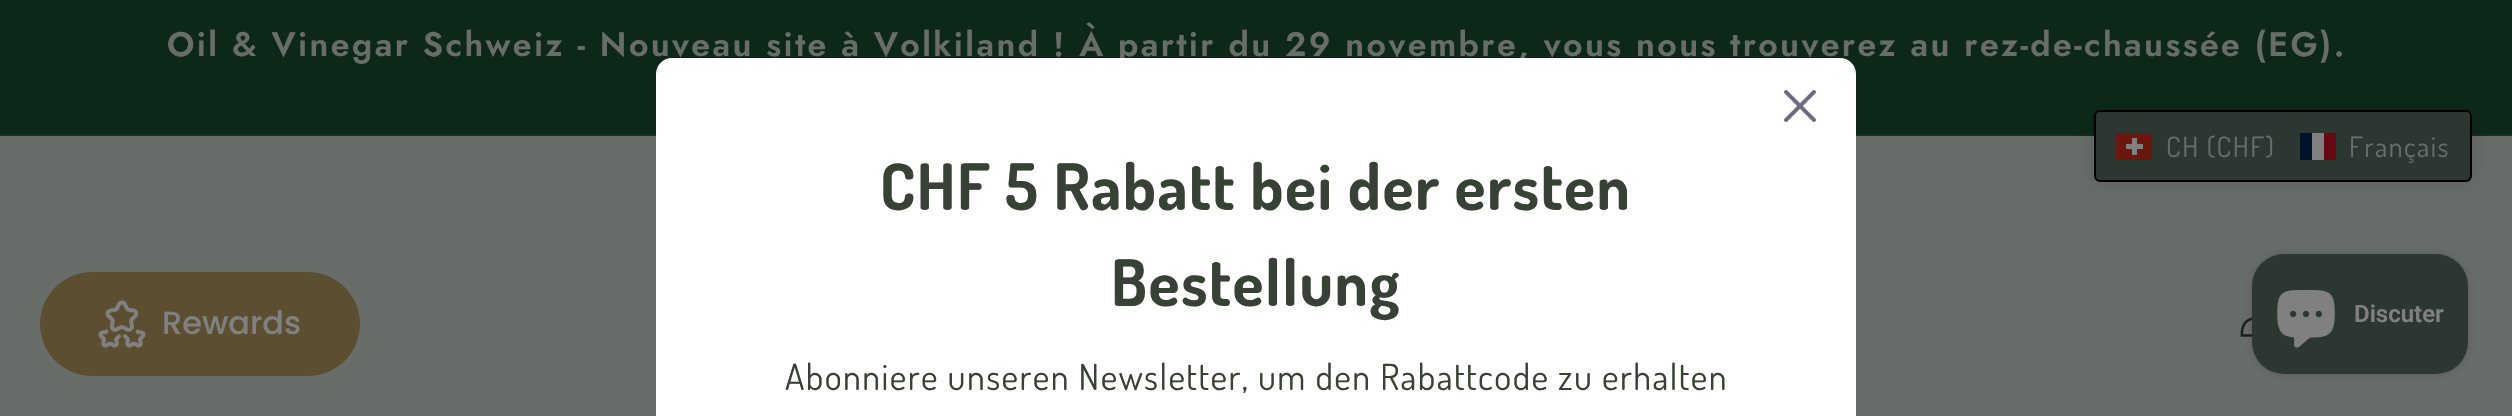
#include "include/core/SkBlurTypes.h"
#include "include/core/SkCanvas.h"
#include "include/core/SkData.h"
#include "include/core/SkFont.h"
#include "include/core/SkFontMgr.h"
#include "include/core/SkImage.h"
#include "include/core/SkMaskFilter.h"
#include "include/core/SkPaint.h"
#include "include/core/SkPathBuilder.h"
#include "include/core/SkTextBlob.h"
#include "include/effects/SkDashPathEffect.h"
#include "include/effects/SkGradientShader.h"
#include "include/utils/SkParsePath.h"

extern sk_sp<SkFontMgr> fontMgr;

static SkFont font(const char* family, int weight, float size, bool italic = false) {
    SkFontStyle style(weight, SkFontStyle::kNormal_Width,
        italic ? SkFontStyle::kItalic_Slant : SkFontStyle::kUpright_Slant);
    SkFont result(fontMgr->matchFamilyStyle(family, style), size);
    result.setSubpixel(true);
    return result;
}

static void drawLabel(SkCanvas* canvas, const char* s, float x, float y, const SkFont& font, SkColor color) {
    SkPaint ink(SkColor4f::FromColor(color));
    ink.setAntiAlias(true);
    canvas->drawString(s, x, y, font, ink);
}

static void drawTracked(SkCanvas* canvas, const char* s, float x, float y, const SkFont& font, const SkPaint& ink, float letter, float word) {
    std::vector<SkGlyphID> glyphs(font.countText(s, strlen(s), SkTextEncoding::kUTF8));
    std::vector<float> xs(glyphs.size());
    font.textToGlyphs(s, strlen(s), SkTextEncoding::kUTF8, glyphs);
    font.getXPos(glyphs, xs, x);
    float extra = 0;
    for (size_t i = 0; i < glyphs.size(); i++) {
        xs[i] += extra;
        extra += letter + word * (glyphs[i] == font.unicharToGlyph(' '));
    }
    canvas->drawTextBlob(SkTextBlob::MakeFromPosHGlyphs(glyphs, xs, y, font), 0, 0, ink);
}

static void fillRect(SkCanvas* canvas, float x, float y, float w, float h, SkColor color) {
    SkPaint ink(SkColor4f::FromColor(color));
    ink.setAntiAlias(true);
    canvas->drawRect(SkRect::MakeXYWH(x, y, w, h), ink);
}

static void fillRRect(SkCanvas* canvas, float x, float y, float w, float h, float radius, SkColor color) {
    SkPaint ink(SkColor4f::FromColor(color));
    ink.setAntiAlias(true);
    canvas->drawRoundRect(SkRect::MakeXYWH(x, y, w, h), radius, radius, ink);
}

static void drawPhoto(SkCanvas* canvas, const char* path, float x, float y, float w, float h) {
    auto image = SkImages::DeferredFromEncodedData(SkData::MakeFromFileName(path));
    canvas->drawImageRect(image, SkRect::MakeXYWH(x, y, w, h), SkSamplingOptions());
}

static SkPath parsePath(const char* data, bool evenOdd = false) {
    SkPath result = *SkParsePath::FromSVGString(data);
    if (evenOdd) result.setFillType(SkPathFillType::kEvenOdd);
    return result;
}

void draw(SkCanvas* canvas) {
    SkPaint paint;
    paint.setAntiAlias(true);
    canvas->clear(0xFF686D69);
    fillRect(canvas, 0, 0, 2512, 134, 0xFF0D2819);
    fillRect(canvas, 0, 134, 2512, 2, 0xFF142E20);
    SkFont font1 = font("Jost", 600, 33.8f);
    paint.setColor(0xFF686D69);
    drawTracked(canvas, "Oil & Vinegar Schweiz - Nouveau site à Volkiland ! À partir du 29 novembre, vous nous trouverez au rez-de-chaussée (EG).", 167, 56, font1, paint, 2.4f, 0);
    paint.setColor(0x26000000);
    paint.setMaskFilter(SkMaskFilter::MakeBlur(kNormal_SkBlurStyle, 10));
    canvas->drawRoundRect(SkRect::MakeXYWH(2094, 110, 378, 72), 6, 6, paint);
    paint.setMaskFilter(nullptr);
    paint.setColor(0xFF2D3731);
    canvas->drawRoundRect(SkRect::MakeXYWH(2095, 111, 376, 70), 5, 5, paint);
    paint.setStroke(true);
    paint.setStrokeWidth(2);
    paint.setColor(0xFF000000);
    canvas->drawRoundRect(SkRect::MakeXYWH(2095, 111, 376, 70), 5, 5, paint);
    fillRect(canvas, 2116, 133, 36, 27, 0xFF6B160F);
    fillRect(canvas, 2126, 144, 17, 5, 0xFF808080);
    fillRect(canvas, 2132, 138, 5, 17, 0xFF808080);
    SkFont font2 = font("Dosis", 400, 28);
    paint.setStroke(false);
    paint.setColor(0xFF686D69);
    drawTracked(canvas, "CH (CHF)", 2166, 157, font2, paint, 1.45f, 0);
    fillRect(canvas, 2312, 133, 12, 27, 0xFF808080);
    fillRect(canvas, 2300, 133, 12, 27, 0xFF00132A);
    fillRect(canvas, 2324, 133, 12, 27, 0xFF670913);
    drawTracked(canvas, "Français", 2349, 157, font2, paint, 1.45f, 0);
    fillRRect(canvas, 40, 272, 320, 104, 52, 0xFF5C4E31);
    drawPhoto(canvas, "assets/img1.png", 98, 300, 48, 48);
    SkFont font3 = font("Poppins", 500, 32);
    drawLabel(canvas, "Rewards", 162, 334, font3, 0xFF808080);
    paint.setColor(0xFFFFFFFF);
    canvas->drawPath(parsePath("M672 58H1840C1849 58 1856 65 1856 74V416H656V74C656 65 663 58 672 58Z"), paint);
    drawPhoto(canvas, "assets/img2.png", 1784, 90, 32, 32);
    SkFont font4 = font("Dosis", 700, 64);
    paint.setColor(0xFF384135);
    drawTracked(canvas, "CHF 5 Rabatt bei der ersten", 880, 210, font4, paint, 1.45f, 0);
    drawTracked(canvas, "Bestellung", 1111, 306, font4, paint, 1.45f, 0);
    SkFont font5 = font("Dosis", 400, 36);
    drawTracked(canvas, "Abonniere unseren Newsletter, um den Rabattcode zu erhalten", 785, 390, font5, paint, 1.45f, 0);
    drawPhoto(canvas, "assets/img3.png", 2240, 300, 12, 37);
    paint.setColor(0x26000000);
    paint.setMaskFilter(SkMaskFilter::MakeBlur(kNormal_SkBlurStyle, 5));
    canvas->drawRoundRect(SkRect::MakeXYWH(2252, 254, 216, 120), 32, 32, paint);
    paint.setMaskFilter(nullptr);
    fillRRect(canvas, 2252, 254, 216, 120, 32, 0xFF2D3731);
    drawPhoto(canvas, "assets/img4.png", 2277, 290, 58, 58);
    SkFont font6 = font("Roboto", 600, 24);
    drawLabel(canvas, "Discuter", 2354, 322, font6, 0xFF808080);
}
